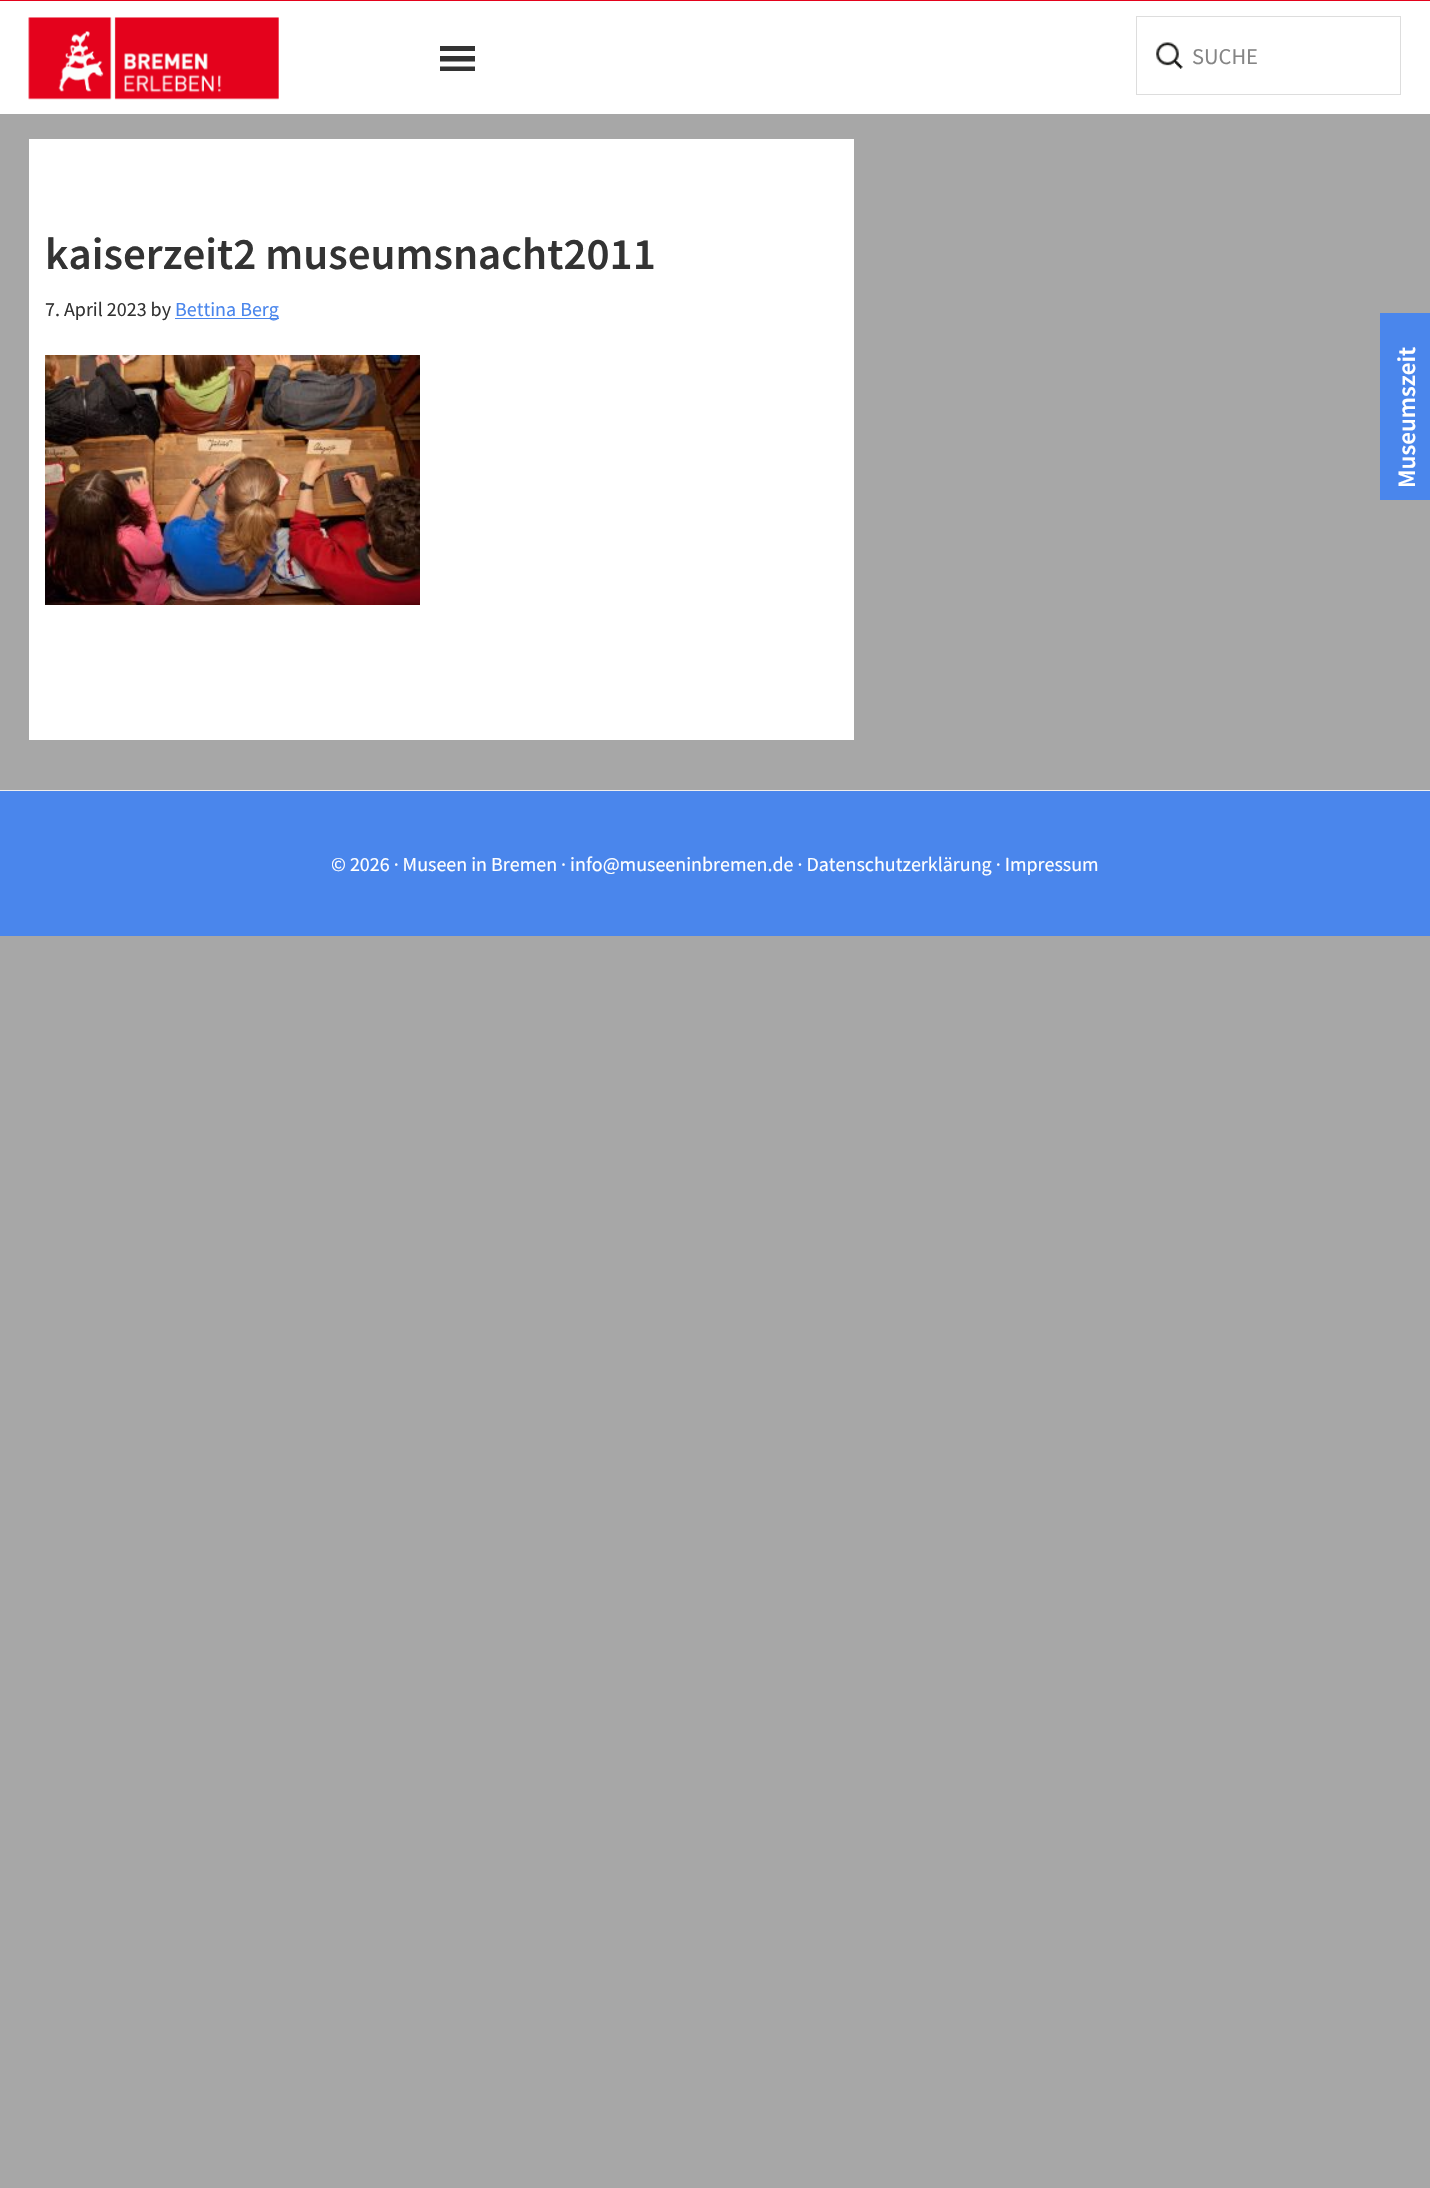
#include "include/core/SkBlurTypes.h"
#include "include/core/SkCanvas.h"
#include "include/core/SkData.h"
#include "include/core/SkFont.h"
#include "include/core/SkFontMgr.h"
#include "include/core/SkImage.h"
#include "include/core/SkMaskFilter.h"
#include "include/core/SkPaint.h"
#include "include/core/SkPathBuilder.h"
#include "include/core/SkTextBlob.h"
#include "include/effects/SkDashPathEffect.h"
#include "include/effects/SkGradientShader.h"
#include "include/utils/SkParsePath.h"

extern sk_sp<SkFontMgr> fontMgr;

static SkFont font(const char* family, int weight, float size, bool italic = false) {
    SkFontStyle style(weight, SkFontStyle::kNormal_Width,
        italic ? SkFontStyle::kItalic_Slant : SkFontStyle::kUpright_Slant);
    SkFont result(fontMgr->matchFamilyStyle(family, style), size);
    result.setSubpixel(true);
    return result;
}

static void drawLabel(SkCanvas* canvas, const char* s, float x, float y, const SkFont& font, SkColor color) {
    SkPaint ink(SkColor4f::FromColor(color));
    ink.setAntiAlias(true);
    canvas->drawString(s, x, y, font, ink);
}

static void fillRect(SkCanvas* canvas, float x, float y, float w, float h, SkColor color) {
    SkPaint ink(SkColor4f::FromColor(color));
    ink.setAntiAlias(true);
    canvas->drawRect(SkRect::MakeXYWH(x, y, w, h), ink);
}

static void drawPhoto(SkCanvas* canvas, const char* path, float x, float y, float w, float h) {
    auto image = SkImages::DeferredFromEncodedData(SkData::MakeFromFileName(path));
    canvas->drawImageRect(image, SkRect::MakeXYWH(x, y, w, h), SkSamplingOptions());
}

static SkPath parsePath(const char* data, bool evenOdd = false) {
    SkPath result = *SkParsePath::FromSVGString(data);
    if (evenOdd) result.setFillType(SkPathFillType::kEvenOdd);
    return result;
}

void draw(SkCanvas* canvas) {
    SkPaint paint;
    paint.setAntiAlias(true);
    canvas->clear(0xFFA7A7A7);
    fillRect(canvas, 0, 0, 1430, 1, 0xFFE4021C);
    fillRect(canvas, 0, 1, 1430, 113, 0xFFFFFFFF);
    drawPhoto(canvas, "assets/img1.png", 28, 17, 251, 83);
    paint.setColor(0xFF333333);
    canvas->drawPath(parsePath("M440 71H475V66.5H440ZM440 46V51H475V46ZM440 61.5H475V56H440Z"), paint);
    drawPhoto(canvas, "assets/img2.png", 1156, 42, 27, 27);
    paint.setStroke(true);
    paint.setStrokeWidth(1);
    paint.setColor(0xFFDDDDDD);
    canvas->drawRect(SkRect::MakeXYWH(1136.5f, 16.5f, 264, 78), paint);
    SkFont font1 = font("Source Sans Pro", 400, 22.5f);
    drawLabel(canvas, "SUCHE", 1192, 64, font1, 0xFF858585);
    fillRect(canvas, 29, 139, 825, 601, 0xFFFFFFFF);
    SkFont font2 = font("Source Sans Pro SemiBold", 600, 45);
    drawLabel(canvas, "kaiserzeit2 museumsnacht2011", 45, 269, font2, 0xFF333333);
    SkFont font3 = font("Source Sans Pro", 400, 20);
    drawLabel(canvas, "7. April 2023 by", 45, 316, font3, 0xFF333333);
    fillRect(canvas, 175, 318, 104, 1, 0xFF4A86EC);
    drawLabel(canvas, "Bettina Berg", 175, 316, font3, 0xFF4A86EC);
    drawPhoto(canvas, "assets/img3.png", 45, 355, 375, 250);
    fillRect(canvas, 1380, 313, 50, 187, 0xFF4A86EC);
    SkFont font4 = font("Source Sans Pro SemiBold", 600, 25);
    canvas->save();
    canvas->rotate(-90, 1415, 488);
    drawLabel(canvas, "Museumszeit", 1415, 488, font4, 0xFFFFFFFF);
    canvas->restore();
    fillRect(canvas, 0, 791, 1430, 145, 0xFF4A86EC);
    fillRect(canvas, 0, 790, 1430, 1, 0xFFEEEEEE);
    drawLabel(canvas, "© 2026 · Museen in Bremen · info@museeninbremen.de · Datenschutzerklärung · Impressum", 331, 871, font3, 0xFFFFFFFF);
}
